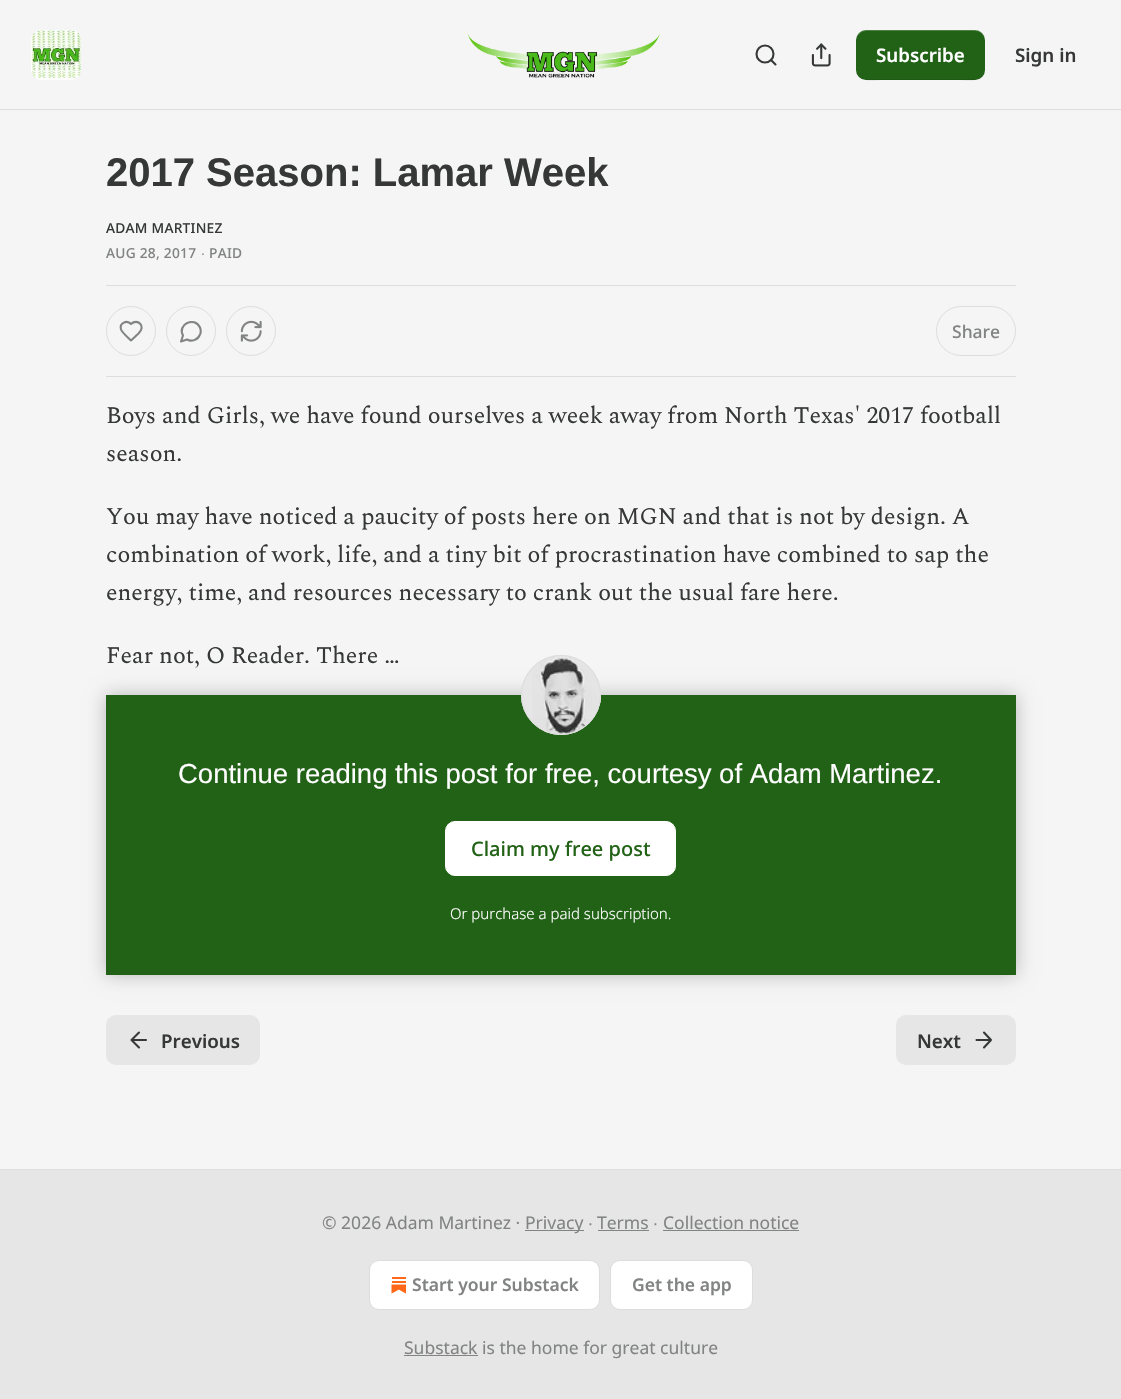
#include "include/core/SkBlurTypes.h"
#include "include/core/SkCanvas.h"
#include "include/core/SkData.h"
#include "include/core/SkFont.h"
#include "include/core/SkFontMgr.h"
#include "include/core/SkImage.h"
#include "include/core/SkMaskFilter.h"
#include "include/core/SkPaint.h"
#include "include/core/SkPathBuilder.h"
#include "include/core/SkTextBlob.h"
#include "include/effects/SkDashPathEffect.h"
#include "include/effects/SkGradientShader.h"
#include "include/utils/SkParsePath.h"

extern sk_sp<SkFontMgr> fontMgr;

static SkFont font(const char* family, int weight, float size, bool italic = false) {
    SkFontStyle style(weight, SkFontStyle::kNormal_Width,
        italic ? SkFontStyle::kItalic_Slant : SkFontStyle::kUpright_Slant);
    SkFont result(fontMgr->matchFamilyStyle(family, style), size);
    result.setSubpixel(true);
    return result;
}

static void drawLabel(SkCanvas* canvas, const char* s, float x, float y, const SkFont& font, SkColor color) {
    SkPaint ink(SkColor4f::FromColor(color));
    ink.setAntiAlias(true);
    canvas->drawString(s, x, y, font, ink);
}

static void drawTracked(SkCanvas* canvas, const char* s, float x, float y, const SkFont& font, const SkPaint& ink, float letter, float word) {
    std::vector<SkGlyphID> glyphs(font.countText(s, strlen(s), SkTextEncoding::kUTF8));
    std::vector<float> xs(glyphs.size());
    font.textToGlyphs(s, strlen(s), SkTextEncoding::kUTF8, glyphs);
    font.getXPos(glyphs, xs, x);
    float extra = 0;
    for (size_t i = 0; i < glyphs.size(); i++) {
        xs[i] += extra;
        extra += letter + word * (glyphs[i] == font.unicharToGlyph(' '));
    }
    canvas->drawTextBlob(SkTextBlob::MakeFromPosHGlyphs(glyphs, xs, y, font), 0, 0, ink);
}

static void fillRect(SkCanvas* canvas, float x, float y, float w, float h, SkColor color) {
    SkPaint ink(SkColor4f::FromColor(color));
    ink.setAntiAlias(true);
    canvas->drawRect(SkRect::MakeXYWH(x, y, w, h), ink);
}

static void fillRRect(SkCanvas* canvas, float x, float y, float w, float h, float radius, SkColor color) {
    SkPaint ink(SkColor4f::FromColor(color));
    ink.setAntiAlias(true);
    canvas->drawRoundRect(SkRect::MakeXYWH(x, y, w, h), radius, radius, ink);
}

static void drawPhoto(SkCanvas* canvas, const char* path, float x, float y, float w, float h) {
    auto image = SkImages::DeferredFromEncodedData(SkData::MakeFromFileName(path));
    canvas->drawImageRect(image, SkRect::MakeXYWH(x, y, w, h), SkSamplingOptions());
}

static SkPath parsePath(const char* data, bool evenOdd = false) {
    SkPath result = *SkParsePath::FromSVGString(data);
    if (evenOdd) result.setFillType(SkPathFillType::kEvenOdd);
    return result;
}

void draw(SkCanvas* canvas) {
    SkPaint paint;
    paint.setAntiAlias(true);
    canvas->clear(0xFFF5F5F5);
    fillRect(canvas, 0, 109, 1121, 1, 0xFFDDDDDD);
    fillRRect(canvas, 31, 30, 50, 50, 10, 0xFFFFFFFF);
    drawPhoto(canvas, "assets/img1.png", 31, 30, 50, 50);
    drawPhoto(canvas, "assets/img2.png", 467, 32, 193, 46);
    paint.setStroke(true);
    paint.setStrokeWidth(2.1f);
    paint.setColor(0xFF363737);
    canvas->drawCircle(765, 54, 8.5f, paint);
    paint.setStrokeCap(SkPaint::kRound_Cap);
    paint.setStrokeJoin(SkPaint::kRound_Join);
    canvas->drawPath(parsePath("M775.5 64.5L771 60"), paint);
    drawPhoto(canvas, "assets/img3.png", 811, 43, 20, 24);
    fillRRect(canvas, 856, 30, 129, 50, 10, 0xFF226216);
    paint.setStroke(false);
    paint.setColor(0x1A000000);
    canvas->drawPath(parsePath("M856 69C856 84 874 80 884 80H957C967 80 985 84 985 69C985 74 981 79 975 79H866C861 79 856 74 856 69Z"), paint);
    paint.setColor(0x33FFFFFF);
    canvas->drawPath(parsePath("M866 31H975C981 31 985 36 985 41C985 26 967 30 957 30H884C874 30 856 26 856 41C856 36 861 31 866 31Z"), paint);
    SkFont font1 = font("Noto Sans", 600, 18.75f);
    drawLabel(canvas, "Subscribe", 876, 62, font1, 0xFFFFFFFF);
    drawLabel(canvas, "Sign in", 1015, 62, font1, 0xFF363737);
    SkFont font2 = font("Liberation Sans", 700, 40);
    drawLabel(canvas, "2017 Season: Lamar Week", 106, 186, font2, 0xFF363737);
    SkFont font3 = font("Noto Sans", 500, 13.75f);
    paint.setColor(0xFF363737);
    drawTracked(canvas, "ADAM MARTINEZ", 106, 233, font3, paint, 0.25f, 0);
    paint.setColor(0xFF828383);
    drawTracked(canvas, "AUG 28, 2017", 106, 258, font3, paint, 0.25f, 0);
    SkFont font4 = font("Liberation Sans", 400, 13.75f);
    drawTracked(canvas, "∙", 201, 258, font4, paint, 0.25f, 0);
    drawTracked(canvas, "PAID", 209, 258, font3, paint, 0.25f, 0);
    fillRect(canvas, 106, 285, 910, 1, 0xFFDDDDDD);
    fillRect(canvas, 106, 376, 910, 1, 0xFFDDDDDD);
    paint.setStroke(true);
    paint.setStrokeWidth(1);
    paint.setStrokeCap(SkPaint::kButt_Cap);
    paint.setStrokeJoin(SkPaint::kMiter_Join);
    paint.setColor(0xFFDDDDDD);
    canvas->drawCircle(131, 331, 24.5f, paint);
    paint.setStrokeWidth(2.1f);
    paint.setStrokeCap(SkPaint::kRound_Cap);
    paint.setStrokeJoin(SkPaint::kRound_Join);
    paint.setColor(0xFF828383);
    canvas->drawPath(parsePath("M138.5 333.5C146.5 326 137.5 318 131 324C127 319.5 119 323 121 329.5C122 332.5 128.5 338 131 340.5Z"), paint);
    paint.setStrokeWidth(1);
    paint.setStrokeCap(SkPaint::kButt_Cap);
    paint.setStrokeJoin(SkPaint::kMiter_Join);
    paint.setColor(0xFFDDDDDD);
    canvas->drawCircle(191, 331, 24.5f, paint);
    paint.setStrokeWidth(2.1f);
    paint.setStrokeCap(SkPaint::kRound_Cap);
    paint.setStrokeJoin(SkPaint::kRound_Join);
    paint.setColor(0xFF828383);
    canvas->drawPath(parsePath("M187 339.5C191.5 342 197.5 340 199.5 335.5C201 333 201 330 200 327.5C194.5 316 177 324.5 183 335.5L181 341.5Z"), paint);
    paint.setStrokeWidth(1);
    paint.setStrokeCap(SkPaint::kButt_Cap);
    paint.setStrokeJoin(SkPaint::kMiter_Join);
    paint.setColor(0xFFDDDDDD);
    canvas->drawCircle(251, 331, 24.5f, paint);
    drawPhoto(canvas, "assets/img4.png", 240, 320, 22, 22);
    canvas->drawRoundRect(SkRect::MakeXYWH(936.5f, 306.5f, 79, 49), 24.5f, 24.5f, paint);
    SkFont font5 = font("Noto Sans", 500, 17.5f);
    drawLabel(canvas, "Share", 952, 338, font5, 0xFF828383);
    SkFont font6 = font("Spectral", 400, 23.75f);
    drawLabel(canvas, "Boys and Girls, we have found ourselves a week away from North Texas' 2017 football", 106, 423, font6, 0xFF363737);
    drawLabel(canvas, "season.", 106, 461, font6, 0xFF363737);
    drawLabel(canvas, "You may have noticed a paucity of posts here on MGN and that is not by design. A", 106, 524, font6, 0xFF363737);
    drawLabel(canvas, "combination of work, life, and a tiny bit of procrastination have combined to sap the", 106, 562, font6, 0xFF363737);
    drawLabel(canvas, "energy, time, and resources necessary to crank out the usual fare here.", 106, 600, font6, 0xFF363737);
    drawLabel(canvas, "Fear not, O Reader. There …", 106, 663, font6, 0xFF363737);
    fillRect(canvas, 106, 695, 910, 280, 0xFF226216);
    paint.setStroke(false);
    paint.setColor(0xFFFFFFFF);
    canvas->drawRoundRect(SkRect::MakeXYWH(445.5f, 821.5f, 230, 54), 9.5f, 9.5f, paint);
    paint.setStroke(true);
    canvas->drawRoundRect(SkRect::MakeXYWH(445.5f, 821.5f, 230, 54), 9.5f, 9.5f, paint);
    canvas->save();
    canvas->clipPath(parsePath("M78 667H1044V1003H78ZM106 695H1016V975H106Z", true), true);
    paint.setStroke(false);
    paint.setColor(0x40000000);
    paint.setMaskFilter(SkMaskFilter::MakeBlur(kNormal_SkBlurStyle, 9));
    canvas->drawRect(SkRect::MakeXYWH(106, 695, 910, 280), paint);
    paint.setMaskFilter(nullptr);
    canvas->restore();
    paint.setStroke(true);
    paint.setColor(0xFFDDDDDD);
    canvas->drawCircle(561, 695, 39.5f, paint);
    paint.setStroke(false);
    paint.setColor(0xFFE6E6E6);
    canvas->drawCircle(561, 695, 40, paint);
    drawPhoto(canvas, "assets/img5.png", 532, 655, 69, 80);
    paint.setStroke(true);
    paint.setColor(0xFFDDDDDD);
    canvas->drawCircle(561, 695, 39.5f, paint);
    SkFont font7 = font("Liberation Sans", 400, 27.5f);
    drawLabel(canvas, "Continue reading this post for free, courtesy of Adam Martinez.", 178, 783, font7, 0xFFFFFFFF);
    SkFont font8 = font("Noto Sans", 500, 20);
    drawLabel(canvas, "Claim my free post", 471, 856, font8, 0xFF226216);
    SkFont font9 = font("Noto Sans", 300, 15);
    drawLabel(canvas, "Or purchase a paid subscription.", 450, 919, font9, 0xFFFFFFFF);
    fillRRect(canvas, 106, 1015, 154, 50, 10, 0xFFE6E6E6);
    paint.setStrokeWidth(2.1f);
    paint.setStrokeCap(SkPaint::kRound_Cap);
    paint.setStrokeJoin(SkPaint::kRound_Join);
    paint.setColor(0xFF363737);
    canvas->drawPath(parsePath("M139 1047.5L131.5 1040L139 1032.5M146 1040H131.5"), paint);
    drawLabel(canvas, "Previous", 161, 1048, font1, 0xFF363737);
    fillRRect(canvas, 896, 1015, 120, 50, 10, 0xFFE6E6E6);
    drawLabel(canvas, "Next", 917, 1048, font1, 0xFF363737);
    canvas->drawPath(parsePath("M976.5 1040H991M984 1032.5L991 1040L984 1047.5"), paint);
    fillRect(canvas, 0, 1170, 1121, 229, 0xFFE6E6E6);
    fillRect(canvas, 0, 1169, 1121, 1, 0xFFDDDDDD);
    SkFont font10 = font("Noto Sans", 400, 17.5f);
    drawLabel(canvas, "© 2026 Adam Martinez ·", 322, 1229, font10, 0xFF828383);
    fillRect(canvas, 525, 1230, 59, 1, 0xFF828383);
    drawLabel(canvas, "Privacy", 525, 1229, font10, 0xFF828383);
    SkFont font11 = font("Liberation Sans", 400, 17.5f);
    drawLabel(canvas, "∙", 588, 1229, font11, 0xFF828383);
    drawLabel(canvas, "Terms", 597, 1229, font10, 0xFF828383);
    fillRect(canvas, 598, 1230, 51, 1, 0xFF828383);
    drawLabel(canvas, "∙", 653, 1229, font11, 0xFF828383);
    drawLabel(canvas, "Collection notice", 663, 1229, font10, 0xFF828383);
    fillRect(canvas, 663, 1230, 136, 1, 0xFF828383);
    paint.setStroke(false);
    paint.setColor(0xFFFFFFFF);
    canvas->drawRoundRect(SkRect::MakeXYWH(369.5f, 1260.5f, 230, 49), 9.5f, 9.5f, paint);
    paint.setStroke(true);
    paint.setStrokeWidth(1);
    paint.setStrokeCap(SkPaint::kButt_Cap);
    paint.setStrokeJoin(SkPaint::kMiter_Join);
    paint.setColor(0xFFDDDDDD);
    canvas->drawRoundRect(SkRect::MakeXYWH(369.5f, 1260.5f, 230, 49), 9.5f, 9.5f, paint);
    drawPhoto(canvas, "assets/img6.png", 391, 1277, 15, 17);
    SkFont font12 = font("Noto Sans", 600, 17.5f);
    drawLabel(canvas, "Start your Substack", 412, 1291, font12, 0xFF828383);
    paint.setStroke(false);
    paint.setColor(0xFFFFFFFF);
    canvas->drawRoundRect(SkRect::MakeXYWH(610.5f, 1260.5f, 142, 49), 9.5f, 9.5f, paint);
    paint.setStroke(true);
    paint.setColor(0xFFDDDDDD);
    canvas->drawRoundRect(SkRect::MakeXYWH(610.5f, 1260.5f, 142, 49), 9.5f, 9.5f, paint);
    drawLabel(canvas, "Get the app", 632, 1291, font12, 0xFF828383);
    fillRect(canvas, 404, 1355, 74, 1, 0xFF828383);
    drawLabel(canvas, "Substack is the home for great culture", 404, 1354, font10, 0xFF828383);
}
